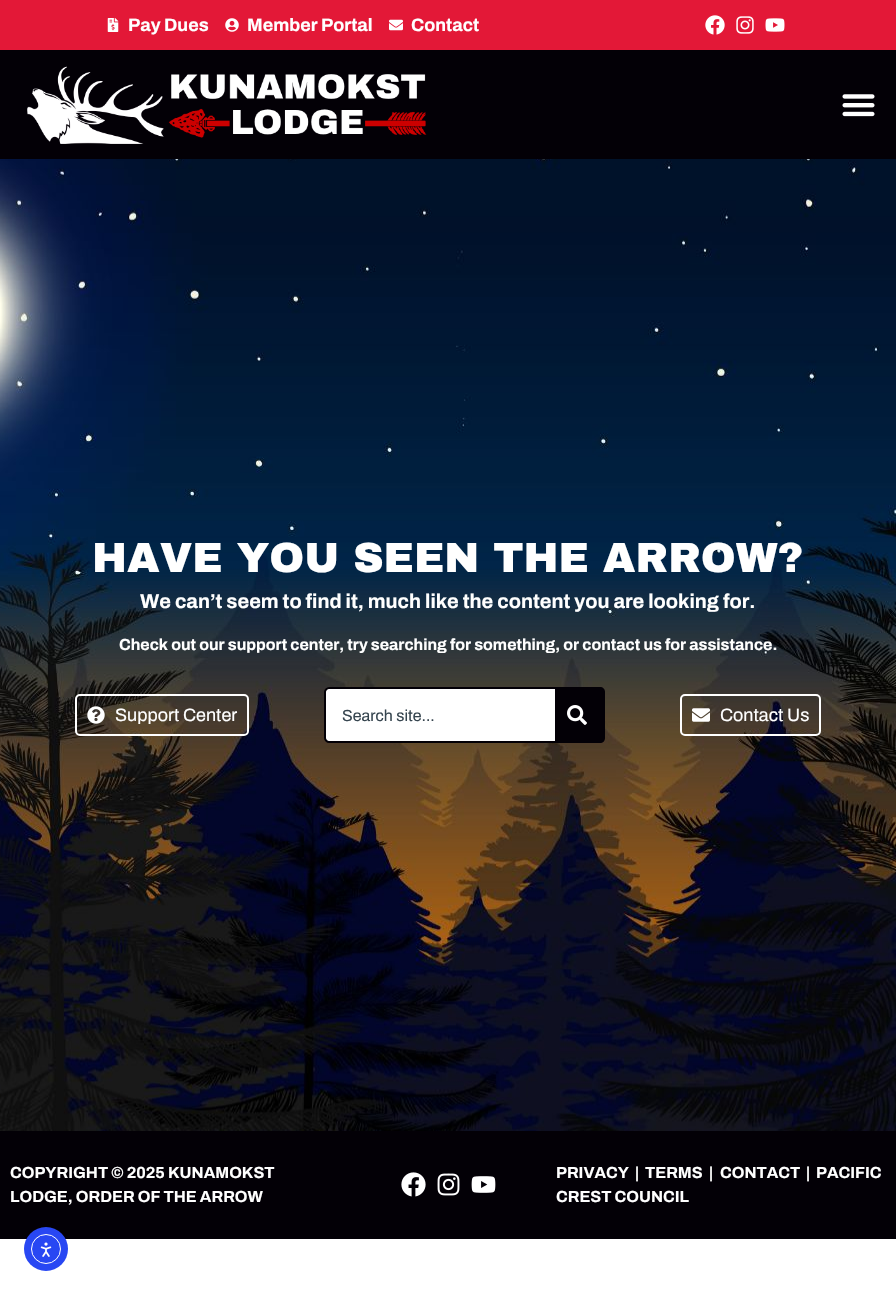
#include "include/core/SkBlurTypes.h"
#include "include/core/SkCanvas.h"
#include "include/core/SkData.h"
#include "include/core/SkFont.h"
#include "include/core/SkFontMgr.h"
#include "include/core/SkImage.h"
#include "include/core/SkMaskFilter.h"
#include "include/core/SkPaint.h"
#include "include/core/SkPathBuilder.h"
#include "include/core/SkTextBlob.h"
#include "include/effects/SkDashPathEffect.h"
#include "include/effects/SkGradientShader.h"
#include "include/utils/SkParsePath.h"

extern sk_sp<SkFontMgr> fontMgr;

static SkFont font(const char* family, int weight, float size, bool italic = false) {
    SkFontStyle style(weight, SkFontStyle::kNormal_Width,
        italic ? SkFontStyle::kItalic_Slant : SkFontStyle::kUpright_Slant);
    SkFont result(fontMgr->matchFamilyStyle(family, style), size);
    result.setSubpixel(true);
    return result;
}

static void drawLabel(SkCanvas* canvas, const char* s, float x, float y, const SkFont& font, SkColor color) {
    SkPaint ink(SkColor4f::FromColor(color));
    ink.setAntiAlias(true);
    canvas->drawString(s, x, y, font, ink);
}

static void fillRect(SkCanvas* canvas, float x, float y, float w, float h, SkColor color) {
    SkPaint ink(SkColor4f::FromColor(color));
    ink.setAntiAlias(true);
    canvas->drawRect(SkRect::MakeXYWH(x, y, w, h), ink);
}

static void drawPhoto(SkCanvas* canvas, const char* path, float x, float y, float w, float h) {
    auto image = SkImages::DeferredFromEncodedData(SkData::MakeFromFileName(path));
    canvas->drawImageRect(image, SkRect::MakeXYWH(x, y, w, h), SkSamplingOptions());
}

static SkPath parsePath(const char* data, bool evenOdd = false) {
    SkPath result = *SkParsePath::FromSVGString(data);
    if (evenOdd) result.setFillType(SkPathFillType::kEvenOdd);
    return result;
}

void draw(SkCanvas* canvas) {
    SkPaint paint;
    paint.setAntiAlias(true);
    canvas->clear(0xFFFFFFFF);
    fillRect(canvas, 0, 0, 896, 50, 0xFFE31837);
    drawPhoto(canvas, "assets/img1.png", 107, 18, 12, 14);
    SkFont font1 = font("Archivo", 700, 18);
    drawLabel(canvas, "Pay Dues", 128, 31, font1, 0xFFFFFFFF);
    drawPhoto(canvas, "assets/img2.png", 225, 18, 14, 14);
    drawLabel(canvas, "Member Portal", 247, 31, font1, 0xFFFFFFFF);
    drawPhoto(canvas, "assets/img3.png", 389, 19, 14, 12);
    drawLabel(canvas, "Contact", 411, 31, font1, 0xFFFFFFFF);
    drawPhoto(canvas, "assets/img4.png", 705, 15, 20, 20);
    drawPhoto(canvas, "assets/img5.png", 736, 16, 18, 18);
    drawPhoto(canvas, "assets/img6.png", 765, 18, 20, 14);
    fillRect(canvas, 0, 50, 896, 109, 0xFF030006);
    drawPhoto(canvas, "assets/img7.png", 27, 66, 400, 78);
    drawPhoto(canvas, "assets/img8.png", 842, 94, 33, 23);
    drawPhoto(canvas, "assets/img9.png", 0, 159, 896, 972);
    SkFont font2 = font("Archivo Black", 900, 42);
    drawLabel(canvas, "HAVE YOU SEEN THE ARROW?", 92, 572, font2, 0xFFFFFFFF);
    SkFont font3 = font("Archivo", 700, 20);
    drawLabel(canvas, "We can’t seem to find it, much like the content you are looking for.", 140, 608, font3, 0xFFFFFFFF);
    SkFont font4 = font("Archivo", 700, 16);
    drawLabel(canvas, "Check out our support center, try searching for something, or contact us for assistance.", 119, 650, font4, 0xFFFFFFFF);
    paint.setStroke(true);
    paint.setStrokeWidth(2);
    paint.setColor(0xFFFFFFFF);
    canvas->drawRoundRect(SkRect::MakeXYWH(76, 695, 172, 40), 4, 4, paint);
    drawPhoto(canvas, "assets/img10.png", 87, 706, 18, 18);
    SkFont font5 = font("Archivo", 400, 18);
    drawLabel(canvas, "Support Center", 115, 721, font5, 0xFFFFFFFF);
    paint.setStroke(false);
    canvas->drawPath(parsePath("M329 688H556V742H329C327 742 325 740 325 738V692C325 690 327 688 329 688Z"), paint);
    paint.setStroke(true);
    paint.setColor(0xFF030006);
    canvas->drawPath(parsePath("M329 688H556V742H329C327 742 325 740 325 738V692C325 690 327 688 329 688Z"), paint);
    SkFont font6 = font("Archivo", 400, 16);
    drawLabel(canvas, "Search site...", 342, 721, font6, 0xFF36454F);
    paint.setStroke(false);
    canvas->drawPath(parsePath("M557 687H600C603 687 605 689 605 692V738C605 741 603 743 600 743H557Z"), paint);
    drawPhoto(canvas, "assets/img11.png", 567, 705, 20, 20);
    paint.setStroke(true);
    paint.setColor(0xFFFFFFFF);
    canvas->drawRoundRect(SkRect::MakeXYWH(681, 695, 139, 40), 4, 4, paint);
    drawPhoto(canvas, "assets/img12.png", 692, 708, 18, 14);
    drawLabel(canvas, "Contact Us", 720, 721, font5, 0xFFFFFFFF);
    fillRect(canvas, 0, 1131, 896, 108, 0xFF030006);
    drawLabel(canvas, "COPYRIGHT © 2025 KUNAMOKST", 10, 1178, font4, 0xFFFFFFFF);
    drawLabel(canvas, "LODGE, ORDER OF THE ARROW", 10, 1202, font4, 0xFFFFFFFF);
    drawPhoto(canvas, "assets/img13.png", 401, 1172, 25, 25);
    drawPhoto(canvas, "assets/img14.png", 437, 1173, 23, 23);
    drawPhoto(canvas, "assets/img15.png", 471, 1176, 25, 17);
    drawLabel(canvas, "PRIVACY", 556, 1178, font4, 0xFFFFFFFF);
    drawLabel(canvas, "|", 635, 1178, font4, 0xFFFFFFFF);
    drawLabel(canvas, "TERMS", 645, 1178, font4, 0xFFFFFFFF);
    drawLabel(canvas, "|", 709, 1178, font4, 0xFFFFFFFF);
    drawLabel(canvas, "CONTACT", 720, 1178, font4, 0xFFFFFFFF);
    drawLabel(canvas, "|", 806, 1178, font4, 0xFFFFFFFF);
    drawLabel(canvas, "PACIFIC", 816, 1178, font4, 0xFFFFFFFF);
    drawLabel(canvas, "CREST COUNCIL", 556, 1202, font4, 0xFFFFFFFF);
    paint.setStroke(false);
    paint.setColor(0xFF2847F3);
    canvas->drawCircle(46, 1249, 22, paint);
    paint.setStroke(true);
    paint.setStrokeWidth(1);
    paint.setColor(0xFFFFFFFF);
    canvas->drawCircle(46, 1249, 14.5f, paint);
    drawPhoto(canvas, "assets/img16.png", 40, 1242, 12, 15);
}
